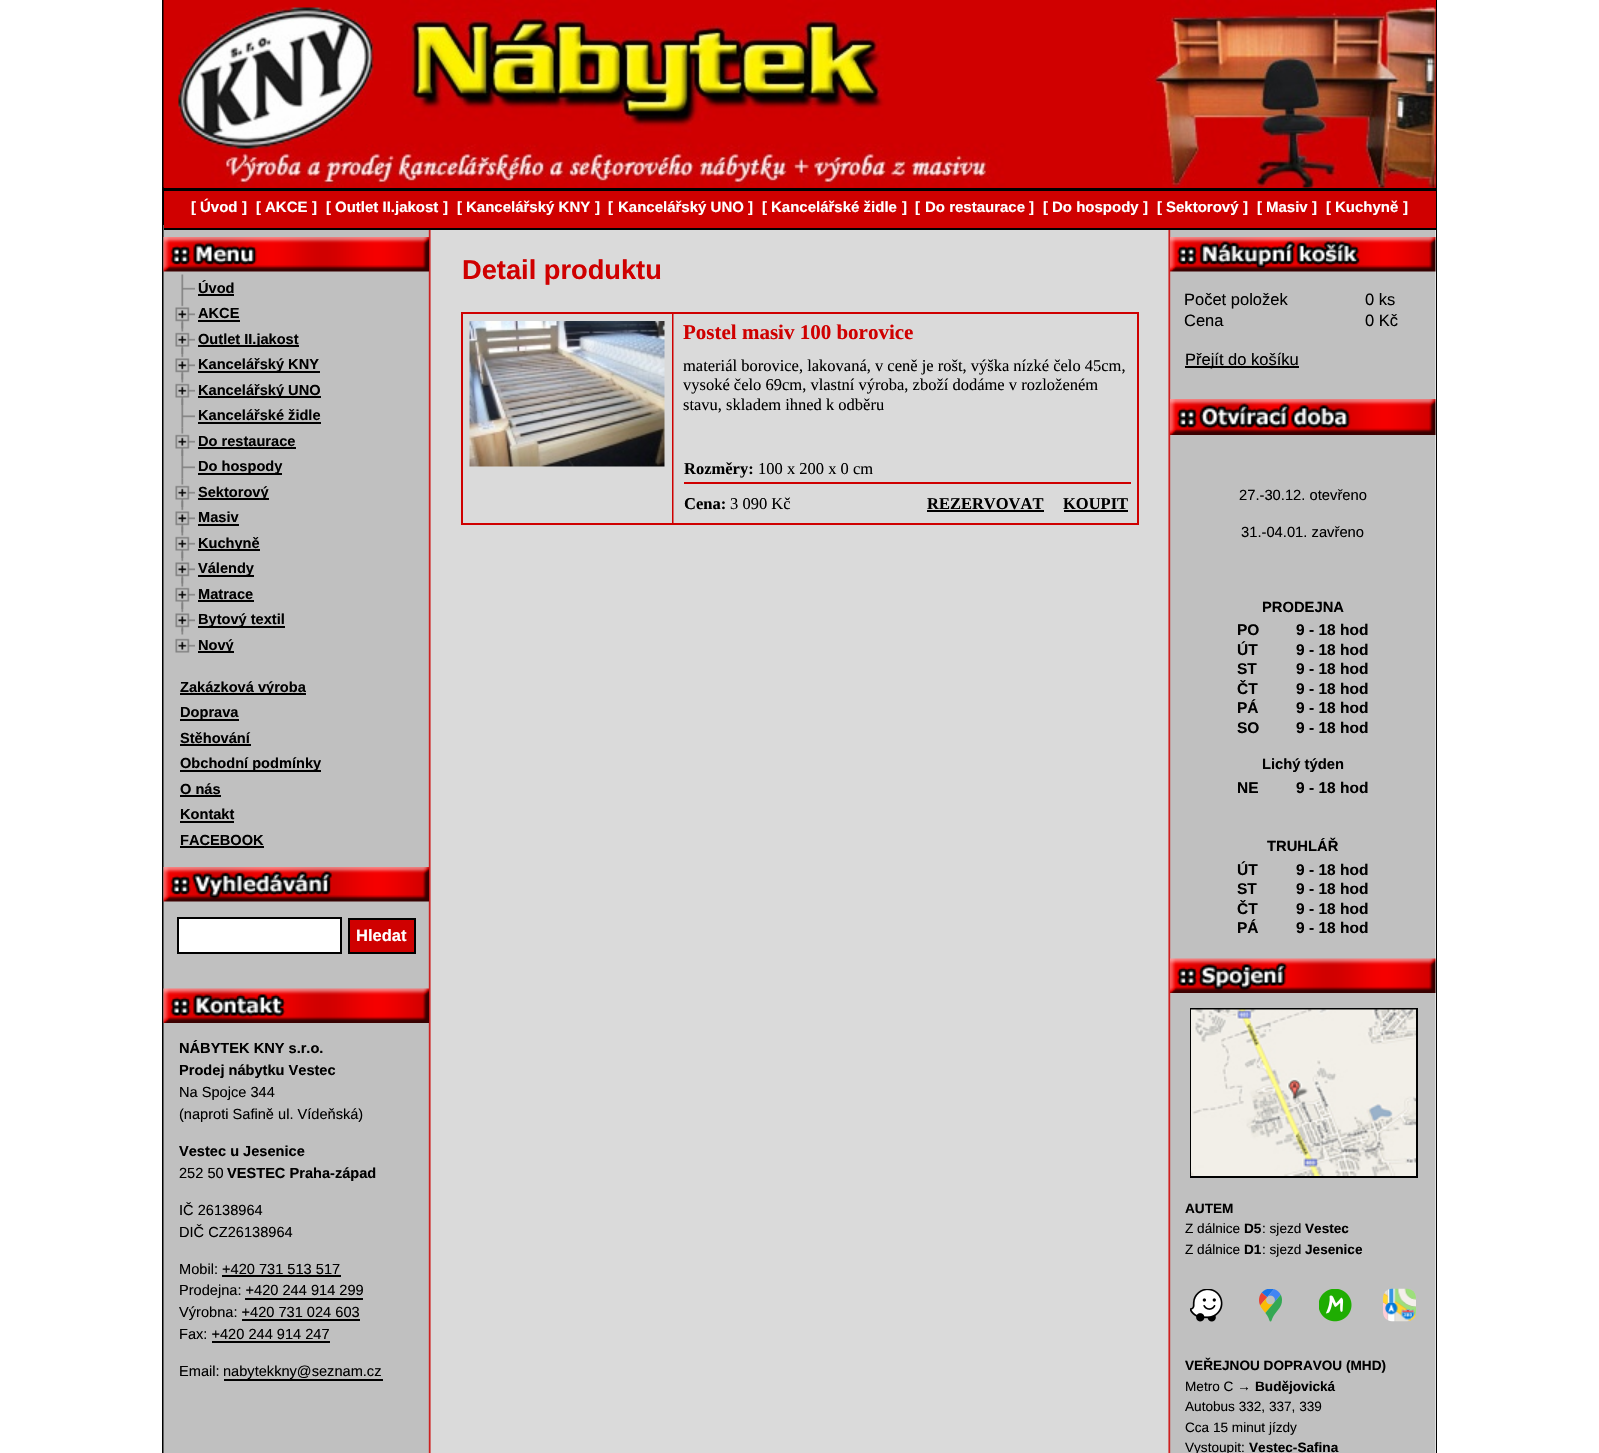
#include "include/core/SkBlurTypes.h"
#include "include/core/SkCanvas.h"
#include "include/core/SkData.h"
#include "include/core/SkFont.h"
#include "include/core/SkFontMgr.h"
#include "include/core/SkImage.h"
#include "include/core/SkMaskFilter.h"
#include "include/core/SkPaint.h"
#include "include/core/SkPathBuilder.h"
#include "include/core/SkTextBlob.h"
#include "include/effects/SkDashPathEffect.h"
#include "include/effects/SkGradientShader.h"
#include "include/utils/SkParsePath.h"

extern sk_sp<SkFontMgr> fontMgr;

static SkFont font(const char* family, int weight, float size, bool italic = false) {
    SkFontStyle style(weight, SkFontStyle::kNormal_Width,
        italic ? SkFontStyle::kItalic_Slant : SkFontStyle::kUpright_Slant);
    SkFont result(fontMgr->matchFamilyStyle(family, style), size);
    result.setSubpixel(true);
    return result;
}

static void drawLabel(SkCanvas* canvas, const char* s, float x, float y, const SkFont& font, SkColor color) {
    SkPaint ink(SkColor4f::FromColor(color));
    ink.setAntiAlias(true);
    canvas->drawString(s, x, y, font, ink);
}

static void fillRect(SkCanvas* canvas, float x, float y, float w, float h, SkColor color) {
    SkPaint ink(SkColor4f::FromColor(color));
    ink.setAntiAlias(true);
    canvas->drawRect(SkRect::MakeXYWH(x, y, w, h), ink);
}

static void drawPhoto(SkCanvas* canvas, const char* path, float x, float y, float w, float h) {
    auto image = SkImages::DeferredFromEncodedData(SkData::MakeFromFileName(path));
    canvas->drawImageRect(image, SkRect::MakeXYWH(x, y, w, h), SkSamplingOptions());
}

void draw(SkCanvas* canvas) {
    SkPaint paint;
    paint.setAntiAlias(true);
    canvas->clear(0xFFFFFFFF);
    paint.setStroke(true);
    paint.setStrokeWidth(2);
    paint.setColor(0xFF000000);
    canvas->drawRect(SkRect::MakeXYWH(163, 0, 1273, 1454), paint);
    fillRect(canvas, 164, 0, 1272, 188, 0xFFD00000);
    drawPhoto(canvas, "assets/img1.png", 163, 0, 1273, 188);
    drawPhoto(canvas, "assets/img2.png", 178, 7, 196, 142);
    fillRect(canvas, 1435, 230, 1, 1223, 0xFFFFFFFF);
    drawPhoto(canvas, "assets/img3.png", 163, 225, 1273, 1228);
    fillRect(canvas, 164, 191, 1272, 37, 0xFFD00000);
    fillRect(canvas, 164, 188, 1272, 3, 0xFF000000);
    fillRect(canvas, 164, 228, 1272, 2, 0xFF000000);
    SkFont font1 = font("Liberation Sans", 700, 15);
    drawLabel(canvas, "[", 191, 212, font1, 0xFFFFFFFF);
    drawLabel(canvas, "Úvod", 200, 212, font1, 0xFFFFFFFF);
    drawLabel(canvas, "]", 242, 212, font1, 0xFFFFFFFF);
    drawLabel(canvas, "[", 256, 212, font1, 0xFFFFFFFF);
    drawLabel(canvas, "AKCE", 265, 212, font1, 0xFFFFFFFF);
    drawLabel(canvas, "]", 312, 212, font1, 0xFFFFFFFF);
    drawLabel(canvas, "[", 326, 212, font1, 0xFFFFFFFF);
    drawLabel(canvas, "Outlet II.jakost", 335, 212, font1, 0xFFFFFFFF);
    drawLabel(canvas, "]", 443, 212, font1, 0xFFFFFFFF);
    drawLabel(canvas, "[", 457, 212, font1, 0xFFFFFFFF);
    drawLabel(canvas, "Kancelářský KNY", 466, 212, font1, 0xFFFFFFFF);
    drawLabel(canvas, "]", 595, 212, font1, 0xFFFFFFFF);
    drawLabel(canvas, "[", 608, 212, font1, 0xFFFFFFFF);
    drawLabel(canvas, "Kancelářský UNO", 618, 212, font1, 0xFFFFFFFF);
    drawLabel(canvas, "]", 748, 212, font1, 0xFFFFFFFF);
    drawLabel(canvas, "[", 762, 212, font1, 0xFFFFFFFF);
    drawLabel(canvas, "Kancelářské židle", 771, 212, font1, 0xFFFFFFFF);
    drawLabel(canvas, "]", 902, 212, font1, 0xFFFFFFFF);
    drawLabel(canvas, "[", 915, 212, font1, 0xFFFFFFFF);
    drawLabel(canvas, "Do restaurace", 925, 212, font1, 0xFFFFFFFF);
    drawLabel(canvas, "]", 1029, 212, font1, 0xFFFFFFFF);
    drawLabel(canvas, "[", 1043, 212, font1, 0xFFFFFFFF);
    drawLabel(canvas, "Do hospody", 1052, 212, font1, 0xFFFFFFFF);
    drawLabel(canvas, "]", 1143, 212, font1, 0xFFFFFFFF);
    drawLabel(canvas, "[", 1157, 212, font1, 0xFFFFFFFF);
    drawLabel(canvas, "Sektorový", 1166, 212, font1, 0xFFFFFFFF);
    drawLabel(canvas, "]", 1243, 212, font1, 0xFFFFFFFF);
    drawLabel(canvas, "[", 1257, 212, font1, 0xFFFFFFFF);
    drawLabel(canvas, "Masiv", 1266, 212, font1, 0xFFFFFFFF);
    drawLabel(canvas, "]", 1312, 212, font1, 0xFFFFFFFF);
    drawLabel(canvas, "[", 1326, 212, font1, 0xFFFFFFFF);
    drawLabel(canvas, "Kuchyně", 1335, 212, font1, 0xFFFFFFFF);
    drawLabel(canvas, "]", 1403, 212, font1, 0xFFFFFFFF);
    drawPhoto(canvas, "assets/img4.png", 163, 237, 266, 35);
    drawPhoto(canvas, "assets/img5.png", 181, 274, 14, 26);
    SkFont font2 = font("Liberation Sans", 700, 14.6f);
    drawLabel(canvas, "Úvod", 198, 293, font2, 0xFF000000);
    fillRect(canvas, 198, 294, 36, 2, 0xFF000000);
    drawPhoto(canvas, "assets/img6.png", 181, 300, 3, 26);
    drawPhoto(canvas, "assets/img8.png", 181, 325, 3, 26);
    drawPhoto(canvas, "assets/img7.png", 175, 307, 20, 22);
    drawLabel(canvas, "AKCE", 198, 318, font2, 0xFF000000);
    fillRect(canvas, 198, 320, 42, 2, 0xFF000000);
    drawPhoto(canvas, "assets/img6.png", 181, 351, 3, 26);
    drawPhoto(canvas, "assets/img9.png", 175, 332, 20, 22);
    fillRect(canvas, 198, 345, 101, 2, 0xFF000000);
    drawLabel(canvas, "Outlet II.jakost", 198, 344, font2, 0xFF000000);
    drawPhoto(canvas, "assets/img8.png", 181, 376, 3, 26);
    drawPhoto(canvas, "assets/img7.png", 175, 358, 20, 22);
    fillRect(canvas, 198, 371, 122, 2, 0xFF000000);
    drawLabel(canvas, "Kancelářský KNY", 198, 369, font2, 0xFF000000);
    drawPhoto(canvas, "assets/img10.png", 181, 402, 14, 26);
    drawPhoto(canvas, "assets/img9.png", 175, 383, 20, 22);
    fillRect(canvas, 198, 396, 123, 2, 0xFF000000);
    drawLabel(canvas, "Kancelářský UNO", 198, 395, font2, 0xFF000000);
    drawLabel(canvas, "Kancelářské židle", 198, 420, font2, 0xFF000000);
    fillRect(canvas, 198, 422, 123, 2, 0xFF000000);
    drawPhoto(canvas, "assets/img8.png", 181, 427, 3, 26);
    drawPhoto(canvas, "assets/img10.png", 181, 453, 14, 26);
    drawPhoto(canvas, "assets/img9.png", 175, 434, 20, 22);
    drawLabel(canvas, "Do restaurace", 198, 446, font2, 0xFF000000);
    fillRect(canvas, 198, 447, 98, 2, 0xFF000000);
    fillRect(canvas, 198, 473, 84, 2, 0xFF000000);
    drawLabel(canvas, "Do hospody", 198, 471, font2, 0xFF000000);
    drawPhoto(canvas, "assets/img8.png", 181, 478, 3, 26);
    drawPhoto(canvas, "assets/img6.png", 181, 504, 3, 26);
    drawPhoto(canvas, "assets/img9.png", 175, 485, 20, 22);
    fillRect(canvas, 198, 498, 71, 2, 0xFF000000);
    drawLabel(canvas, "Sektorový", 198, 497, font2, 0xFF000000);
    drawPhoto(canvas, "assets/img8.png", 181, 529, 3, 26);
    drawPhoto(canvas, "assets/img7.png", 175, 511, 20, 22);
    drawLabel(canvas, "Masiv", 198, 522, font2, 0xFF000000);
    fillRect(canvas, 198, 524, 41, 2, 0xFF000000);
    drawPhoto(canvas, "assets/img6.png", 181, 555, 3, 26);
    drawPhoto(canvas, "assets/img9.png", 175, 536, 20, 22);
    fillRect(canvas, 198, 549, 62, 2, 0xFF000000);
    drawLabel(canvas, "Kuchyně", 198, 548, font2, 0xFF000000);
    drawPhoto(canvas, "assets/img8.png", 181, 580, 3, 26);
    drawPhoto(canvas, "assets/img7.png", 175, 562, 20, 22);
    fillRect(canvas, 198, 575, 56, 2, 0xFF000000);
    drawLabel(canvas, "Válendy", 198, 573, font2, 0xFF000000);
    drawPhoto(canvas, "assets/img6.png", 181, 606, 3, 26);
    drawPhoto(canvas, "assets/img9.png", 175, 587, 20, 22);
    drawLabel(canvas, "Matrace", 198, 599, font2, 0xFF000000);
    fillRect(canvas, 198, 600, 56, 2, 0xFF000000);
    drawPhoto(canvas, "assets/img11.png", 175, 613, 20, 22);
    fillRect(canvas, 198, 626, 87, 2, 0xFF000000);
    drawLabel(canvas, "Bytový textil", 198, 624, font2, 0xFF000000);
    drawPhoto(canvas, "assets/img12.png", 175, 638, 20, 15);
    fillRect(canvas, 198, 651, 36, 2, 0xFF000000);
    drawLabel(canvas, "Nový", 198, 650, font2, 0xFF000000);
    fillRect(canvas, 180, 693, 126, 2, 0xFF000000);
    drawLabel(canvas, "Zakázková výroba", 180, 692, font2, 0xFF000000);
    fillRect(canvas, 180, 719, 59, 2, 0xFF000000);
    drawLabel(canvas, "Doprava", 180, 717, font2, 0xFF000000);
    drawLabel(canvas, "Stěhování", 180, 743, font2, 0xFF000000);
    fillRect(canvas, 180, 744, 71, 2, 0xFF000000);
    fillRect(canvas, 180, 770, 141, 2, 0xFF000000);
    drawLabel(canvas, "Obchodní podmínky", 180, 768, font2, 0xFF000000);
    drawLabel(canvas, "O nás", 180, 794, font2, 0xFF000000);
    fillRect(canvas, 180, 795, 41, 2, 0xFF000000);
    drawLabel(canvas, "Kontakt", 180, 819, font2, 0xFF000000);
    fillRect(canvas, 180, 821, 54, 2, 0xFF000000);
    drawLabel(canvas, "FACEBOOK", 180, 845, font2, 0xFF000000);
    fillRect(canvas, 180, 846, 84, 2, 0xFF000000);
    drawPhoto(canvas, "assets/img13.png", 163, 867, 266, 35);
    paint.setStroke(false);
    paint.setColor(0xFFFFFFFF);
    canvas->drawRect(SkRect::MakeXYWH(178, 918, 163, 35), paint);
    paint.setStroke(true);
    paint.setColor(0xFF000000);
    canvas->drawRect(SkRect::MakeXYWH(178, 918, 163, 35), paint);
    paint.setStroke(false);
    paint.setColor(0xFFCF0000);
    canvas->drawRect(SkRect::MakeXYWH(349, 919, 66, 34), paint);
    paint.setStroke(true);
    paint.setColor(0xFF000000);
    canvas->drawRect(SkRect::MakeXYWH(349, 919, 66, 34), paint);
    SkFont font3 = font("Liberation Sans", 700, 16.5f);
    drawLabel(canvas, "Hledat", 356, 941, font3, 0xFFFFFFFF);
    drawPhoto(canvas, "assets/img14.png", 163, 988, 266, 35);
    drawLabel(canvas, "NÁBYTEK KNY s.r.o.", 179, 1053, font2, 0xFF000000);
    drawLabel(canvas, "Prodej nábytku Vestec", 179, 1075, font2, 0xFF000000);
    SkFont font4 = font("Liberation Sans", 400, 14.6f);
    drawLabel(canvas, "Na Spojce 344", 179, 1097, font4, 0xFF000000);
    drawLabel(canvas, "(naproti Safině ul. Vídeňská)", 179, 1119, font4, 0xFF000000);
    drawLabel(canvas, "Vestec u Jesenice", 179, 1156, font2, 0xFF000000);
    drawLabel(canvas, "252 50", 179, 1178, font4, 0xFF000000);
    drawLabel(canvas, "VESTEC Praha-západ", 227, 1178, font2, 0xFF000000);
    drawLabel(canvas, "IČ 26138964", 179, 1215, font4, 0xFF000000);
    drawLabel(canvas, "DIČ CZ26138964", 179, 1237, font4, 0xFF000000);
    drawLabel(canvas, "Mobil: +420 731 513 517", 179, 1274, font4, 0xFF000000);
    fillRect(canvas, 222, 1275, 119, 2, 0xFF000000);
    drawLabel(canvas, "Prodejna: +420 244 914 299", 179, 1295, font4, 0xFF000000);
    fillRect(canvas, 245, 1298, 118, 2, 0xFF000000);
    drawLabel(canvas, "Výrobna: +420 731 024 603", 179, 1317, font4, 0xFF000000);
    fillRect(canvas, 242, 1319, 118, 2, 0xFF000000);
    drawLabel(canvas, "Fax: +420 244 914 247", 179, 1339, font4, 0xFF000000);
    fillRect(canvas, 212, 1341, 118, 2, 0xFF000000);
    drawLabel(canvas, "Email:", 179, 1376, font4, 0xFF000000);
    fillRect(canvas, 224, 1379, 159, 2, 0xFF000000);
    drawLabel(canvas, "nabytekkny@seznam.cz", 223, 1376, font4, 0xFF000000);
    SkFont font5 = font("Liberation Sans", 700, 27.25f);
    drawLabel(canvas, "Detail produktu", 462, 279, font5, 0xFFCF0000);
    drawPhoto(canvas, "assets/img15.png", 672, 314, 2, 209);
    paint.setColor(0xFFCF0000);
    canvas->drawRect(SkRect::MakeXYWH(462, 313, 676, 211), paint);
    drawPhoto(canvas, "assets/img16.png", 469, 321, 196, 146);
    SkFont font6 = font("Liberation Serif", 700, 21);
    drawLabel(canvas, "Postel masiv 100 borovice", 683, 339, font6, 0xFFCF0000);
    SkFont font7 = font("Liberation Serif", 400, 16.5f);
    drawLabel(canvas, "materiál borovice, lakovaná, v ceně je rošt, výška nízké čelo 45cm,", 683, 371, font7, 0xFF000000);
    drawLabel(canvas, "vysoké čelo 69cm, vlastní výroba, zboží dodáme v rozloženém", 683, 390, font7, 0xFF000000);
    drawLabel(canvas, "stavu, skladem ihned k odběru", 683, 410, font7, 0xFF000000);
    SkFont font8 = font("Liberation Serif", 700, 16.5f);
    drawLabel(canvas, "Rozměry:", 684, 474, font8, 0xFF000000);
    drawLabel(canvas, "100 x 200 x 0 cm", 758, 474, font7, 0xFF000000);
    fillRect(canvas, 684, 482, 447, 2, 0xFFCF0000);
    drawLabel(canvas, "Cena:", 684, 509, font8, 0xFF000000);
    drawLabel(canvas, "3 090 Kč", 730, 509, font7, 0xFF000000);
    drawLabel(canvas, "REZERVOVAT", 927, 509, font8, 0xFF000000);
    fillRect(canvas, 927, 510, 117, 2, 0xFF000000);
    drawLabel(canvas, "KOUPIT", 1063, 509, font8, 0xFF000000);
    fillRect(canvas, 1064, 510, 64, 2, 0xFF000000);
    drawPhoto(canvas, "assets/img17.png", 1170, 237, 266, 35);
    SkFont font9 = font("Liberation Sans", 400, 16.5f);
    drawLabel(canvas, "Počet položek", 1184, 305, font9, 0xFF000000);
    drawLabel(canvas, "0 ks", 1365, 305, font9, 0xFF000000);
    drawLabel(canvas, "Cena", 1184, 326, font9, 0xFF000000);
    drawLabel(canvas, "0 Kč", 1365, 326, font9, 0xFF000000);
    fillRect(canvas, 1185, 366, 114, 2, 0xFF000000);
    drawLabel(canvas, "Přejít do košíku", 1185, 365, font9, 0xFF000000);
    drawPhoto(canvas, "assets/img18.png", 1170, 399, 266, 36);
    SkFont font10 = font("Liberation Sans", 400, 14.75f);
    drawLabel(canvas, "27.-30.12. otevřeno", 1239, 500, font10, 0xFF000000);
    drawLabel(canvas, "31.-04.01. zavřeno", 1241, 537, font10, 0xFF000000);
    SkFont font11 = font("Liberation Sans", 700, 14.75f);
    drawLabel(canvas, "PRODEJNA", 1262, 612, font11, 0xFF000000);
    SkFont font12 = font("Liberation Sans", 700, 15.5f);
    drawLabel(canvas, "PO", 1237, 635, font12, 0xFF000000);
    drawLabel(canvas, "9 - 18 hod", 1296, 635, font12, 0xFF000000);
    drawLabel(canvas, "ÚT", 1237, 655, font12, 0xFF000000);
    drawLabel(canvas, "9 - 18 hod", 1296, 655, font12, 0xFF000000);
    drawLabel(canvas, "ST", 1237, 674, font12, 0xFF000000);
    drawLabel(canvas, "9 - 18 hod", 1296, 674, font12, 0xFF000000);
    drawLabel(canvas, "ČT", 1237, 694, font12, 0xFF000000);
    drawLabel(canvas, "9 - 18 hod", 1296, 694, font12, 0xFF000000);
    drawLabel(canvas, "PÁ", 1237, 713, font12, 0xFF000000);
    drawLabel(canvas, "9 - 18 hod", 1296, 713, font12, 0xFF000000);
    drawLabel(canvas, "SO", 1237, 733, font12, 0xFF000000);
    drawLabel(canvas, "9 - 18 hod", 1296, 733, font12, 0xFF000000);
    drawLabel(canvas, "Lichý týden", 1262, 769, font11, 0xFF000000);
    drawLabel(canvas, "NE", 1237, 793, font12, 0xFF000000);
    drawLabel(canvas, "9 - 18 hod", 1296, 793, font12, 0xFF000000);
    drawLabel(canvas, "TRUHLÁŘ", 1267, 851, font11, 0xFF000000);
    drawLabel(canvas, "ÚT", 1237, 875, font12, 0xFF000000);
    drawLabel(canvas, "9 - 18 hod", 1296, 875, font12, 0xFF000000);
    drawLabel(canvas, "ST", 1237, 894, font12, 0xFF000000);
    drawLabel(canvas, "9 - 18 hod", 1296, 894, font12, 0xFF000000);
    drawLabel(canvas, "ČT", 1237, 914, font12, 0xFF000000);
    drawLabel(canvas, "9 - 18 hod", 1296, 914, font12, 0xFF000000);
    drawLabel(canvas, "PÁ", 1237, 933, font12, 0xFF000000);
    drawLabel(canvas, "9 - 18 hod", 1296, 933, font12, 0xFF000000);
    drawPhoto(canvas, "assets/img19.png", 1170, 958, 266, 35);
    paint.setColor(0xFF000000);
    canvas->drawRect(SkRect::MakeXYWH(1191, 1009, 226, 168), paint);
    drawPhoto(canvas, "assets/img20.png", 1191, 1009, 225, 167);
    SkFont font13 = font("Liberation Sans", 700, 13.6f);
    drawLabel(canvas, "AUTEM", 1185, 1213, font13, 0xFF000000);
    SkFont font14 = font("Liberation Sans", 400, 13.6f);
    drawLabel(canvas, "Z dálnice", 1185, 1233, font14, 0xFF000000);
    drawLabel(canvas, "D5", 1244, 1233, font13, 0xFF000000);
    drawLabel(canvas, ": sjezd", 1262, 1233, font14, 0xFF000000);
    drawLabel(canvas, "Vestec", 1305, 1233, font13, 0xFF000000);
    drawLabel(canvas, "Z dálnice", 1185, 1254, font14, 0xFF000000);
    drawLabel(canvas, "D1", 1244, 1254, font13, 0xFF000000);
    drawLabel(canvas, ": sjezd", 1262, 1254, font14, 0xFF000000);
    drawLabel(canvas, "Jesenice", 1305, 1254, font13, 0xFF000000);
    drawPhoto(canvas, "assets/img21.png", 1190, 1289, 33, 33);
    drawPhoto(canvas, "assets/img22.png", 1259, 1289, 23, 33);
    drawPhoto(canvas, "assets/img23.png", 1319, 1289, 33, 33);
    drawPhoto(canvas, "assets/img24.png", 1383, 1288, 33, 34);
    drawLabel(canvas, "VEŘEJNOU DOPRAVOU (MHD)", 1185, 1370, font13, 0xFF000000);
    drawLabel(canvas, "Metro C →", 1185, 1391, font14, 0xFF000000);
    drawLabel(canvas, "Budějovická", 1255, 1391, font13, 0xFF000000);
    drawLabel(canvas, "Autobus 332, 337, 339", 1185, 1411, font14, 0xFF000000);
    drawLabel(canvas, "Cca 15 minut jízdy", 1185, 1432, font14, 0xFF000000);
    drawLabel(canvas, "Vystoupit:", 1185, 1452, font14, 0xFF000000);
    drawLabel(canvas, "Vestec-Safina", 1249, 1452, font13, 0xFF000000);
}
